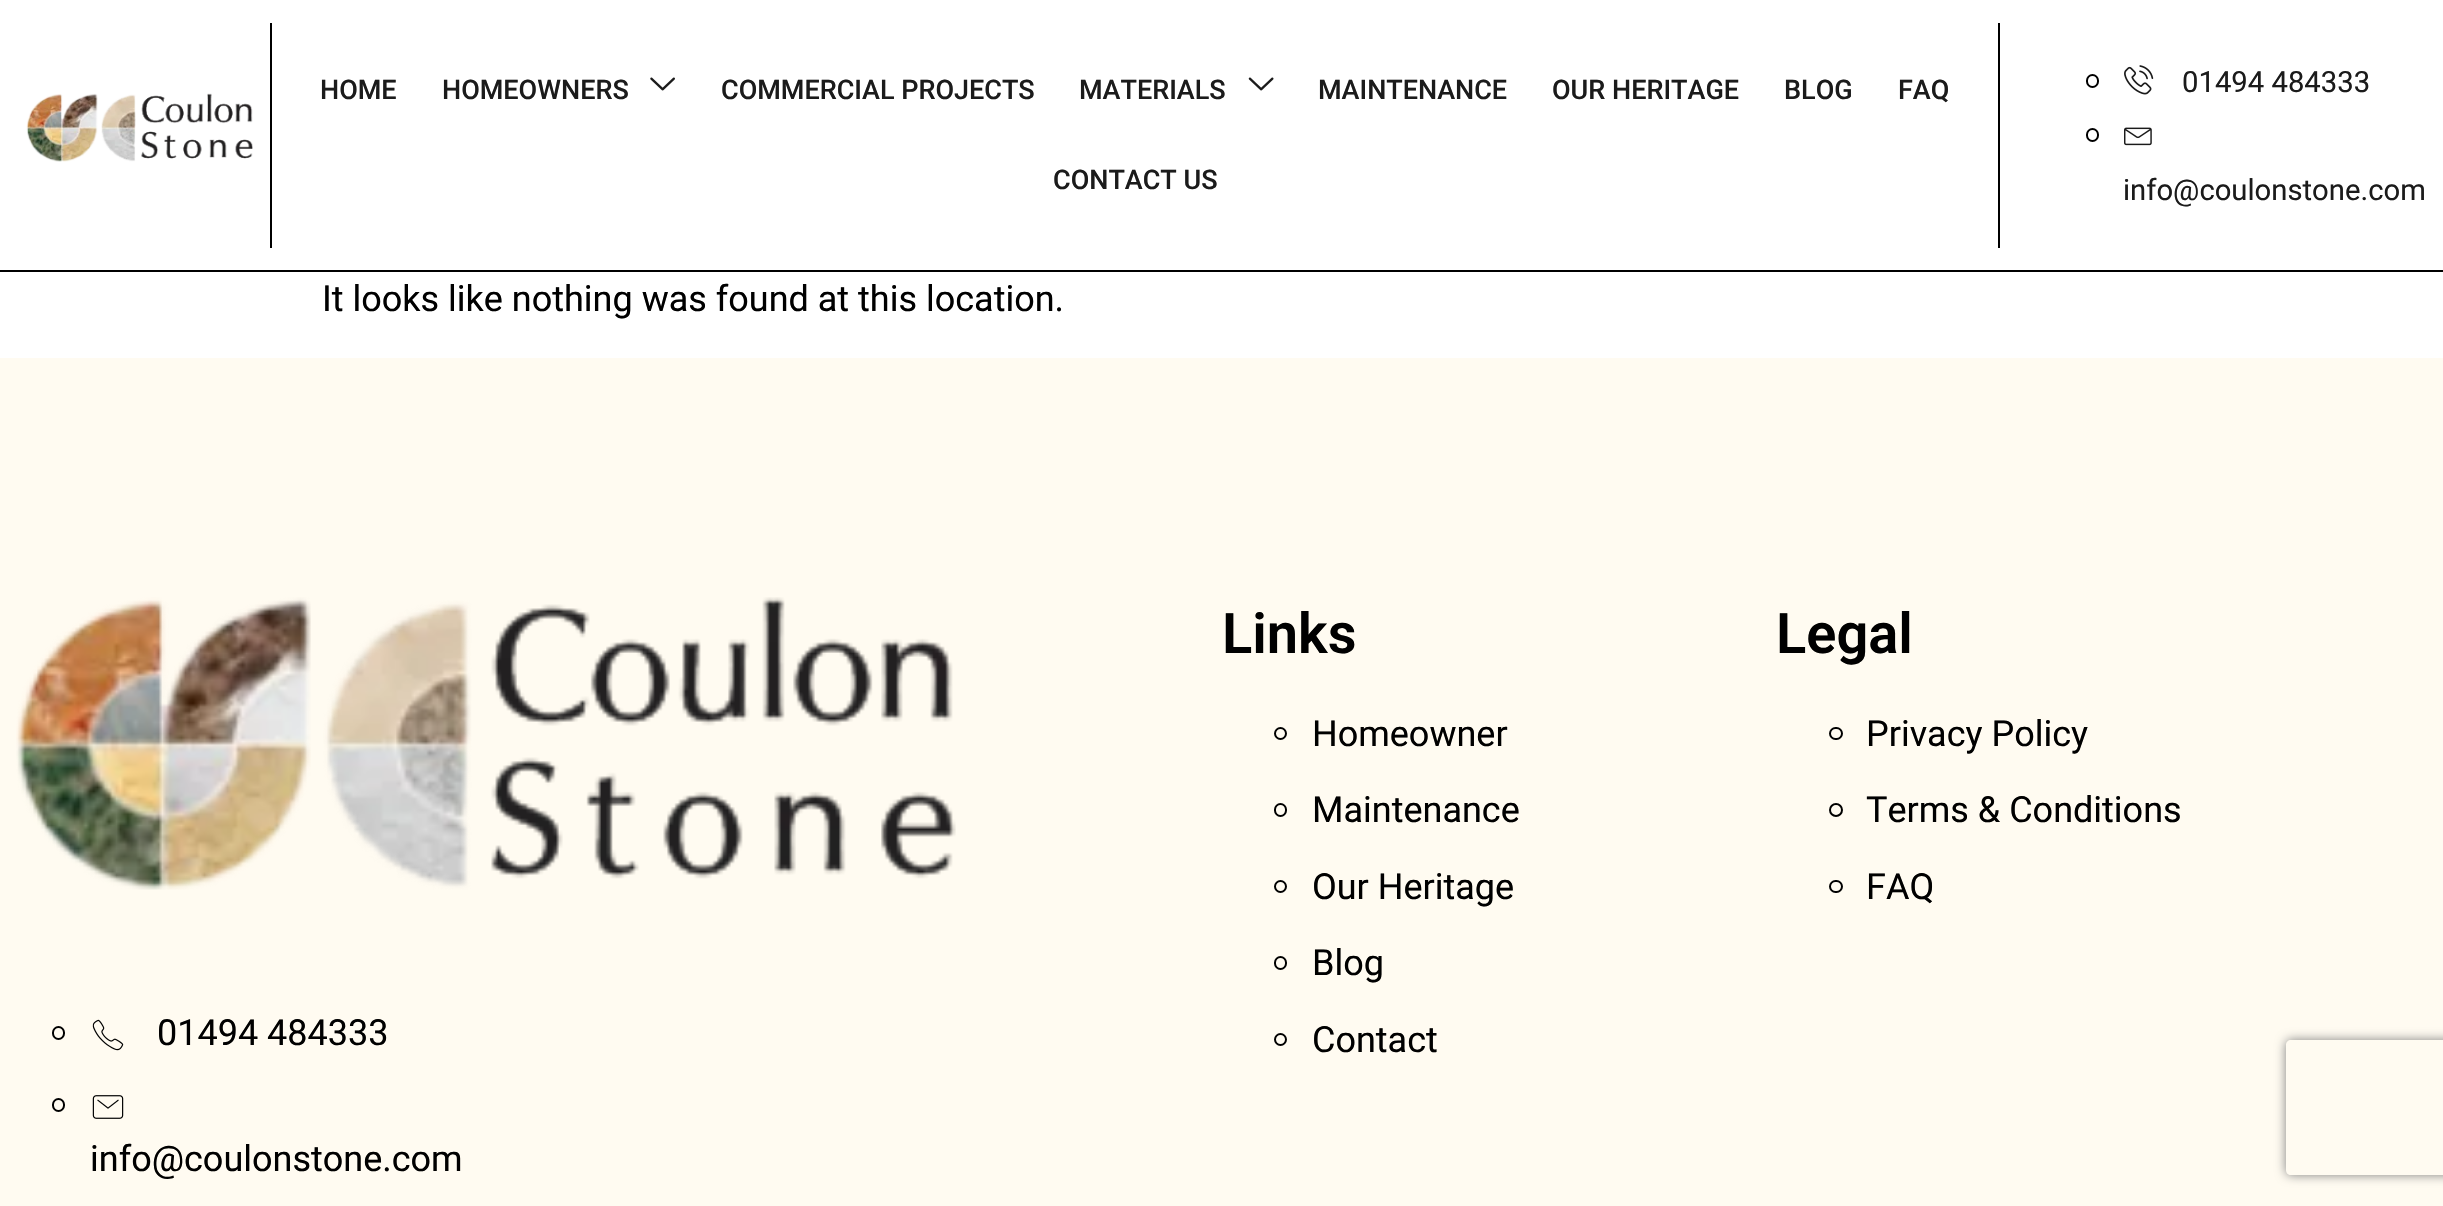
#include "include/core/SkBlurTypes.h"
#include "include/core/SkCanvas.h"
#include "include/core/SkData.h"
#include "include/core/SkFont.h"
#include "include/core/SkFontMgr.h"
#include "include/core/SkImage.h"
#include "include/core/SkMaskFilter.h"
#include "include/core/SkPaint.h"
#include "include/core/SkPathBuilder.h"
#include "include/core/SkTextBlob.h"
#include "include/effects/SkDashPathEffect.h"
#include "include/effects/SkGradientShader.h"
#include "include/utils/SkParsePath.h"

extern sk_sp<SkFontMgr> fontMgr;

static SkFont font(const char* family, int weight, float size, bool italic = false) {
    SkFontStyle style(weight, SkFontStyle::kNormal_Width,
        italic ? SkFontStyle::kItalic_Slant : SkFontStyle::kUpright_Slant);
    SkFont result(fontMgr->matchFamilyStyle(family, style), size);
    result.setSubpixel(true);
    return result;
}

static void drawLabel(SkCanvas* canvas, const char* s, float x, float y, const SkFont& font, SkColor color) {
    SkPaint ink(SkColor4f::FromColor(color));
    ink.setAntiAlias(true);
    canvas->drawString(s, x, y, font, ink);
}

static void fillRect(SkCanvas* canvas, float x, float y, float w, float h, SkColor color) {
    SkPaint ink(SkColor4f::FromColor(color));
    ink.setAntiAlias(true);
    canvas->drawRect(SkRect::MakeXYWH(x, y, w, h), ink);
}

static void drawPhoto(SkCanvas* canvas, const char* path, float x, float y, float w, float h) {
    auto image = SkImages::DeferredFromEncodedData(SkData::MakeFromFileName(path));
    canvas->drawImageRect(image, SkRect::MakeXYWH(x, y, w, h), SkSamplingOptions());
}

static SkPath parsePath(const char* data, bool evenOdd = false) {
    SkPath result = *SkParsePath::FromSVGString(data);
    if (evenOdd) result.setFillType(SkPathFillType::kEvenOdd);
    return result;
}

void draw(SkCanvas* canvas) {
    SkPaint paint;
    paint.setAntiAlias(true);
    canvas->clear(0xFFFFFFFF);
    fillRect(canvas, 0, 270, 2443, 2, 0xFF000000);
    fillRect(canvas, 270, 23, 2, 225, 0xFF000000);
    drawPhoto(canvas, "assets/img1.png", 26, 93, 227, 69);
    SkFont font1 = font("Roboto", 500, 27);
    drawLabel(canvas, "HOME", 320, 99, font1, 0xFF1B1B1B);
    drawLabel(canvas, "HOMEOWNERS", 442, 99, font1, 0xFF1B1B1B);
    drawPhoto(canvas, "assets/img2.png", 650, 77, 25, 14);
    drawLabel(canvas, "COMMERCIAL PROJECTS", 721, 99, font1, 0xFF1B1B1B);
    drawLabel(canvas, "MATERIALS", 1079, 99, font1, 0xFF1B1B1B);
    drawPhoto(canvas, "assets/img3.png", 1248, 77, 26, 14);
    drawLabel(canvas, "MAINTENANCE", 1318, 99, font1, 0xFF1B1B1B);
    drawLabel(canvas, "OUR HERITAGE", 1552, 99, font1, 0xFF1B1B1B);
    drawLabel(canvas, "BLOG", 1784, 99, font1, 0xFF1B1B1B);
    drawLabel(canvas, "FAQ", 1898, 99, font1, 0xFF1B1B1B);
    drawLabel(canvas, "CONTACT US", 1053, 189, font1, 0xFF1B1B1B);
    fillRect(canvas, 1998, 23, 2, 225, 0xFF000000);
    paint.setStroke(true);
    paint.setStrokeWidth(2);
    paint.setColor(0xFF000000);
    canvas->drawRoundRect(SkRect::MakeXYWH(2087, 75, 11, 12), 5.5f, 5.5f, paint);
    drawPhoto(canvas, "assets/img4.png", 2124, 65, 30, 30);
    SkFont font2 = font("Roboto", 400, 29.25f);
    drawLabel(canvas, "01494 484333", 2182, 92, font2, 0xFF1B1B1B);
    canvas->drawRoundRect(SkRect::MakeXYWH(2087, 129, 11, 12), 5.5f, 5.5f, paint);
    drawPhoto(canvas, "assets/img5.png", 2124, 127, 28, 19);
    drawLabel(canvas, "info@coulonstone.com", 2123, 200, font2, 0xFF1B1B1B);
    SkFont font3 = font("Roboto", 400, 36);
    drawLabel(canvas, "It looks like nothing was found at this location.", 322, 311, font3, 0xFF000000);
    fillRect(canvas, 0, 358, 2443, 848, 0xFFFFFBF1);
    SkFont font4 = font("Roboto", 600, 56);
    drawLabel(canvas, "Links", 1222, 653, font4, 0xFF000000);
    drawLabel(canvas, "Legal", 1776, 653, font4, 0xFF000000);
    canvas->drawCircle(1280.5f, 733.5f, 5.5f, paint);
    drawLabel(canvas, "Homeowner", 1312, 746, font3, 0xFF000000);
    canvas->drawRoundRect(SkRect::MakeXYWH(1275, 804, 11, 12), 5.5f, 5.5f, paint);
    drawLabel(canvas, "Maintenance", 1312, 822, font3, 0xFF000000);
    canvas->drawCircle(1280.5f, 886.5f, 5.5f, paint);
    drawLabel(canvas, "Our Heritage", 1312, 899, font3, 0xFF000000);
    canvas->drawRoundRect(SkRect::MakeXYWH(1275, 957, 11, 12), 5.5f, 5.5f, paint);
    drawLabel(canvas, "Blog", 1312, 975, font3, 0xFF000000);
    canvas->drawCircle(1280.5f, 1039.5f, 5.5f, paint);
    drawLabel(canvas, "Contact", 1312, 1052, font3, 0xFF000000);
    canvas->drawRoundRect(SkRect::MakeXYWH(1830, 728, 12, 11), 5.5f, 5.5f, paint);
    drawLabel(canvas, "Privacy Policy", 1866, 746, font3, 0xFF000000);
    canvas->drawCircle(1836, 810, 6, paint);
    drawLabel(canvas, "Terms & Conditions", 1866, 822, font3, 0xFF000000);
    canvas->drawRoundRect(SkRect::MakeXYWH(1830, 881, 12, 11), 5.5f, 5.5f, paint);
    drawLabel(canvas, "FAQ", 1866, 899, font3, 0xFF000000);
    drawPhoto(canvas, "assets/img6.png", 16, 597, 940, 293);
    canvas->drawRoundRect(SkRect::MakeXYWH(53, 1027, 11, 12), 5.5f, 5.5f, paint);
    drawPhoto(canvas, "assets/img7.png", 92, 1019, 32, 32);
    drawLabel(canvas, "01494 484333", 157, 1045, font3, 0xFF000000);
    canvas->drawRoundRect(SkRect::MakeXYWH(53, 1099, 11, 12), 5.5f, 5.5f, paint);
    drawPhoto(canvas, "assets/img8.png", 92, 1095, 32, 24);
    drawLabel(canvas, "info@coulonstone.com", 90, 1171, font3, 0xFF000000);
    canvas->save();
    canvas->clipPath(parsePath("M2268 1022H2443V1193H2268ZM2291 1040H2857C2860 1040 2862 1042 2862 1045V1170C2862 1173 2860 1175 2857 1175H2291C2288 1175 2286 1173 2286 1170V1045C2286 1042 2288 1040 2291 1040Z", true), true);
    paint.setStroke(false);
    paint.setColor(0xFF808080);
    paint.setMaskFilter(SkMaskFilter::MakeBlur(kNormal_SkBlurStyle, 5.5f));
    canvas->drawRoundRect(SkRect::MakeXYWH(2286, 1040, 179, 135), 5, 5, paint);
    paint.setMaskFilter(nullptr);
    canvas->restore();
}
